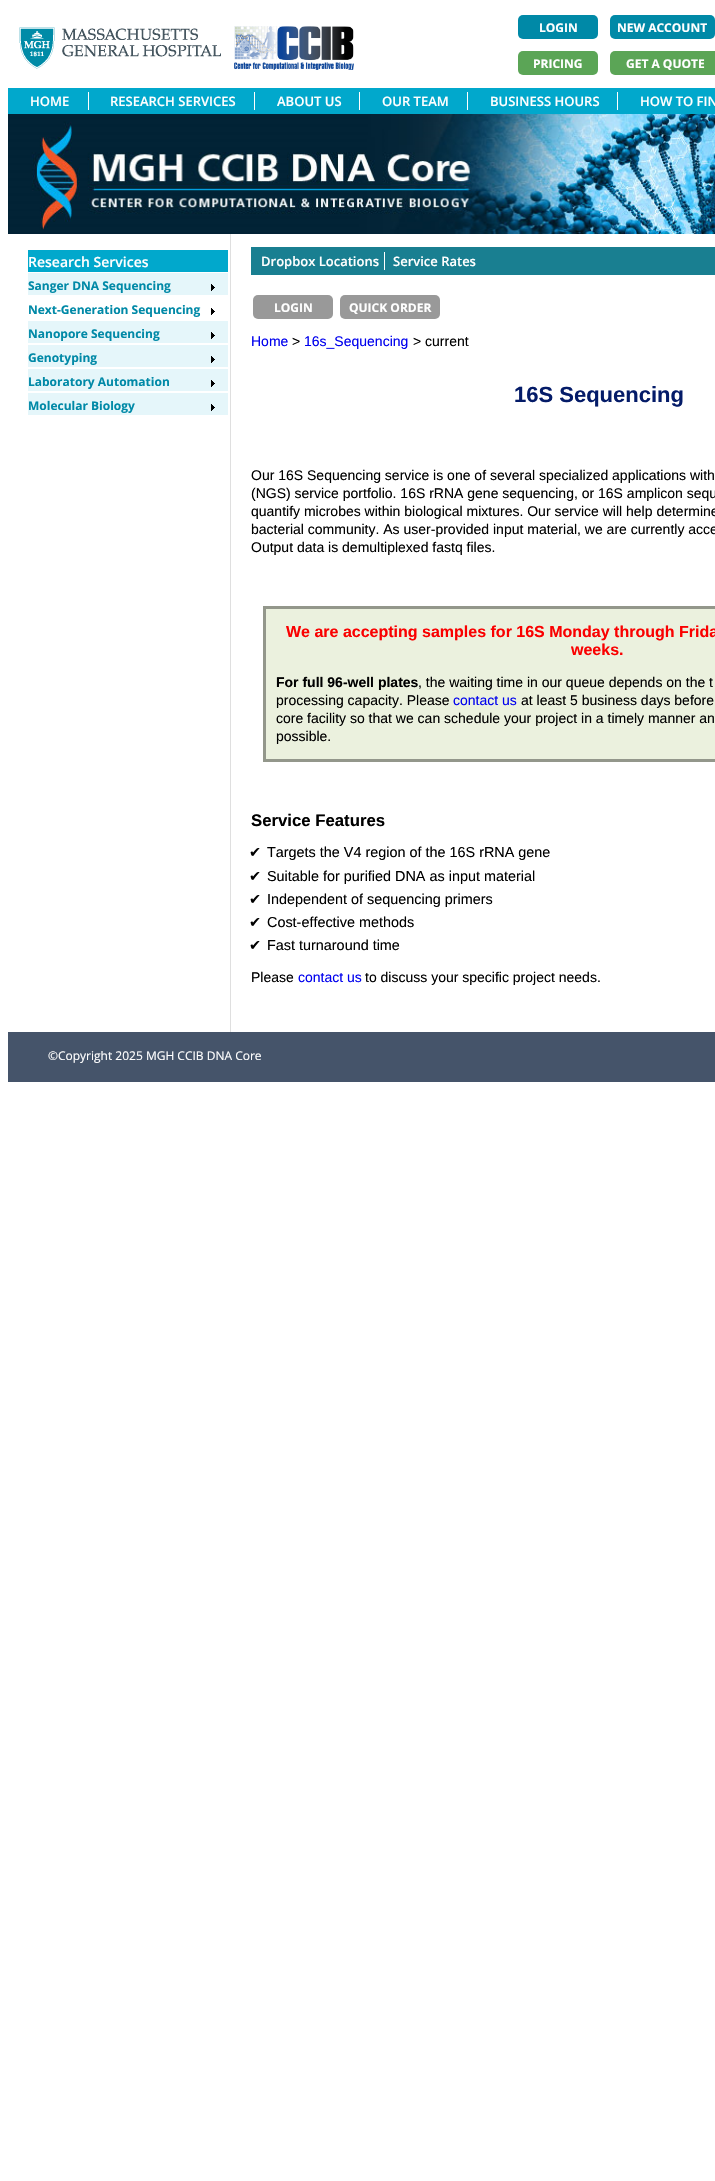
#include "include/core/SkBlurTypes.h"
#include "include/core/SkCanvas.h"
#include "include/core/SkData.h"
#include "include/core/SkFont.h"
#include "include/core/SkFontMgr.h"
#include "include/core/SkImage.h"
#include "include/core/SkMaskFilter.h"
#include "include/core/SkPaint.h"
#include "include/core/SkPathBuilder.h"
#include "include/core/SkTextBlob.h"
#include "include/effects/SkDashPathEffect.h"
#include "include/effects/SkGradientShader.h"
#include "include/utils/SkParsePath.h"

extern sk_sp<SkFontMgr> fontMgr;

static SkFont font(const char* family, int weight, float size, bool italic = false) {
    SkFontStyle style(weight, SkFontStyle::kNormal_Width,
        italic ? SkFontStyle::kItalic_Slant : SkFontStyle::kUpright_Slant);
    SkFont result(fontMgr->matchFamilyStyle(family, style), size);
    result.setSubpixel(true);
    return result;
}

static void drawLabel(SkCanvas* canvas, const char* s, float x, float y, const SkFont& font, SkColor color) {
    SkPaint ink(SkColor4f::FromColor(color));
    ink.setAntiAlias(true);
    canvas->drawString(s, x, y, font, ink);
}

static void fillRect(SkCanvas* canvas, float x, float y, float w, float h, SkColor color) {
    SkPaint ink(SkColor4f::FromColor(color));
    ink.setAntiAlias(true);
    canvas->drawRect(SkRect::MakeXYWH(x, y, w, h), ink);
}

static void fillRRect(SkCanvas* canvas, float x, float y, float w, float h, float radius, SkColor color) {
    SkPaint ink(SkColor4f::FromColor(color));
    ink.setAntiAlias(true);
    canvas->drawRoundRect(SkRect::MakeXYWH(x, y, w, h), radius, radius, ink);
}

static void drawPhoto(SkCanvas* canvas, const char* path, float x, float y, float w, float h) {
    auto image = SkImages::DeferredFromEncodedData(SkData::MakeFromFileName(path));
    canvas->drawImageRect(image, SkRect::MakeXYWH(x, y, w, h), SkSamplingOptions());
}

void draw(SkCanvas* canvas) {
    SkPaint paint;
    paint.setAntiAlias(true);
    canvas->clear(0xFFFFFFFF);
    drawPhoto(canvas, "assets/img1.png", 19, 27, 202, 42);
    drawPhoto(canvas, "assets/img2.png", 234, 26, 120, 44);
    fillRRect(canvas, 518, 15, 80, 24, 5, 0xFF0089A7);
    SkFont font1 = font("Open Sans", 700, 12);
    drawLabel(canvas, "LOGIN", 539, 32, font1, 0xFFFFFFFF);
    fillRRect(canvas, 610, 15, 105, 24, 5, 0xFF0089A7);
    drawLabel(canvas, "NEW ACCOUNT", 617, 32, font1, 0xFFFFFFFF);
    fillRRect(canvas, 518, 51, 80, 24, 5, 0xFF5BA556);
    drawLabel(canvas, "PRICING", 533, 68, font1, 0xFFFFFFFF);
    fillRRect(canvas, 610, 51, 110, 24, 5, 0xFF5BA556);
    drawLabel(canvas, "GET A QUOTE", 626, 68, font1, 0xFFFFFFFF);
    fillRect(canvas, 8, 88, 707, 26, 0xFF01A8CC);
    fillRect(canvas, 88, 92, 1, 18, 0xFFFFFFFF);
    SkFont font2 = font("Open Sans", 600, 13);
    drawLabel(canvas, "HOME", 30, 106, font2, 0xFFFFFFFF);
    fillRect(canvas, 254, 92, 1, 18, 0xFFFFFFFF);
    drawLabel(canvas, "RESEARCH SERVICES", 110, 106, font2, 0xFFFFFFFF);
    fillRect(canvas, 359, 92, 1, 18, 0xFFFFFFFF);
    drawLabel(canvas, "ABOUT US", 277, 106, font2, 0xFFFFFFFF);
    fillRect(canvas, 467, 92, 1, 18, 0xFFFFFFFF);
    drawLabel(canvas, "OUR TEAM", 382, 106, font2, 0xFFFFFFFF);
    fillRect(canvas, 617, 92, 1, 18, 0xFFFFFFFF);
    drawLabel(canvas, "BUSINESS HOURS", 490, 106, font2, 0xFFFFFFFF);
    drawLabel(canvas, "HOW TO FIN", 640, 106, font2, 0xFFFFFFFF);
    drawPhoto(canvas, "assets/img3.png", 8, 114, 707, 120);
    fillRect(canvas, 28, 250, 200, 22, 0xFF01A8CC);
    SkFont font3 = font("Open Sans", 600, 14);
    drawLabel(canvas, "Research Services", 28, 267, font3, 0xFFFFFFFF);
    fillRect(canvas, 28, 273, 200, 22, 0xFFE5F6FA);
    drawPhoto(canvas, "assets/img4.png", 211, 284, 4, 7);
    drawLabel(canvas, "Sanger DNA Sequencing", 28, 290, font1, 0xFF0089A7);
    drawPhoto(canvas, "assets/img5.png", 211, 308, 4, 7);
    drawLabel(canvas, "Next-Generation Sequencing", 28, 314, font1, 0xFF0089A7);
    fillRect(canvas, 28, 321, 200, 22, 0xFFE5F6FA);
    drawPhoto(canvas, "assets/img4.png", 211, 332, 4, 7);
    drawLabel(canvas, "Nanopore Sequencing", 28, 338, font1, 0xFF0089A7);
    fillRect(canvas, 28, 345, 200, 22, 0xFFE5F6FA);
    drawPhoto(canvas, "assets/img4.png", 211, 356, 4, 7);
    drawLabel(canvas, "Genotyping", 28, 362, font1, 0xFF0089A7);
    fillRect(canvas, 28, 369, 200, 22, 0xFFE5F6FA);
    drawPhoto(canvas, "assets/img4.png", 211, 380, 4, 7);
    drawLabel(canvas, "Laboratory Automation", 28, 386, font1, 0xFF0089A7);
    fillRect(canvas, 28, 393, 200, 22, 0xFFE5F6FA);
    drawPhoto(canvas, "assets/img4.png", 211, 404, 4, 7);
    drawLabel(canvas, "Molecular Biology", 28, 410, font1, 0xFF0089A7);
    fillRect(canvas, 230, 234, 1, 798, 0xFFDFDFDF);
    fillRect(canvas, 251, 247, 464, 28, 0xFF197F91);
    fillRect(canvas, 384, 252, 1, 18, 0xFFFFFFFF);
    drawLabel(canvas, "Dropbox Locations", 261, 266, font2, 0xFFFFFFFF);
    drawLabel(canvas, "Service Rates", 393, 266, font2, 0xFFFFFFFF);
    fillRRect(canvas, 253, 295, 80, 24, 5, 0xFF999999);
    drawLabel(canvas, "LOGIN", 274, 312, font1, 0xFFFFFFFF);
    fillRRect(canvas, 340, 295, 100, 24, 5, 0xFF999999);
    drawLabel(canvas, "QUICK ORDER", 349, 312, font1, 0xFFFFFFFF);
    SkFont font4 = font("Liberation Sans", 400, 14);
    drawLabel(canvas, "Home", 251, 346, font4, 0xFF0000EE);
    drawLabel(canvas, ">", 292, 346, font4, 0xFF000000);
    drawLabel(canvas, "16s_Sequencing", 304, 346, font4, 0xFF0000EE);
    drawLabel(canvas, "> current", 413, 346, font4, 0xFF000000);
    SkFont font5 = font("Liberation Sans", 700, 22);
    drawLabel(canvas, "16S Sequencing", 514, 402, font5, 0xFF041B68);
    drawLabel(canvas, "Our 16S Sequencing service is one of several specialized applications with", 251, 480, font4, 0xFF000000);
    drawLabel(canvas, "(NGS) service portfolio. 16S rRNA gene sequencing, or 16S amplicon sequ", 251, 498, font4, 0xFF000000);
    drawLabel(canvas, "quantify microbes within biological mixtures. Our service will help determine", 251, 516, font4, 0xFF000000);
    drawLabel(canvas, "bacterial community. As user-provided input material, we are currently acce", 251, 534, font4, 0xFF000000);
    drawLabel(canvas, "Output data is demultiplexed fastq files.", 251, 552, font4, 0xFF000000);
    paint.setColor(0xFFEBF1DE);
    canvas->drawRect(SkRect::MakeXYWH(264.5f, 607.5f, 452, 153), paint);
    paint.setStroke(true);
    paint.setStrokeWidth(3);
    paint.setColor(0xFF93978B);
    canvas->drawRect(SkRect::MakeXYWH(264.5f, 607.5f, 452, 153), paint);
    SkFont font6 = font("Liberation Sans", 700, 16);
    drawLabel(canvas, "We are accepting samples for 16S Monday through Frida", 286, 637, font6, 0xFFFA0000);
    drawLabel(canvas, "weeks.", 571, 655, font6, 0xFFFA0000);
    SkFont font7 = font("Liberation Sans", 700, 14);
    drawLabel(canvas, "For full 96-well plates", 276, 687, font7, 0xFF000000);
    drawLabel(canvas, ", the waiting time in our queue depends on the t", 418, 687, font4, 0xFF000000);
    drawLabel(canvas, "processing capacity. Please", 276, 705, font4, 0xFF000000);
    drawLabel(canvas, "contact us", 453, 705, font4, 0xFF0000EE);
    drawLabel(canvas, "at least 5 business days before", 521, 705, font4, 0xFF000000);
    drawLabel(canvas, "core facility so that we can schedule your project in a timely manner an", 276, 723, font4, 0xFF000000);
    drawLabel(canvas, "possible.", 276, 741, font4, 0xFF000000);
    SkFont font8 = font("Liberation Sans", 700, 16.75f);
    drawLabel(canvas, "Service Features", 251, 826, font8, 0xFF000000);
    SkFont font9 = font("DejaVu Sans", 400, 14.4f);
    drawLabel(canvas, "✔", 249, 857, font9, 0xFF000000);
    SkFont font10 = font("Liberation Sans", 400, 14.4f);
    drawLabel(canvas, "Targets the V4 region of the 16S rRNA gene", 267, 857, font10, 0xFF000000);
    drawLabel(canvas, "✔", 249, 881, font9, 0xFF000000);
    drawLabel(canvas, "Suitable for purified DNA as input material", 267, 881, font10, 0xFF000000);
    drawLabel(canvas, "✔", 249, 904, font9, 0xFF000000);
    drawLabel(canvas, "Independent of sequencing primers", 267, 904, font10, 0xFF000000);
    drawLabel(canvas, "✔", 249, 927, font9, 0xFF000000);
    drawLabel(canvas, "Cost-effective methods", 267, 927, font10, 0xFF000000);
    drawLabel(canvas, "✔", 249, 950, font9, 0xFF000000);
    drawLabel(canvas, "Fast turnaround time", 267, 950, font10, 0xFF000000);
    drawLabel(canvas, "Please", 251, 982, font4, 0xFF000000);
    drawLabel(canvas, "contact us", 298, 982, font4, 0xFF0000EE);
    drawLabel(canvas, "to discuss your specific project needs.", 365, 982, font4, 0xFF000000);
    fillRect(canvas, 8, 1032, 707, 50, 0xFF45546A);
    SkFont font11 = font("Open Sans", 400, 12);
    drawLabel(canvas, "©Copyright 2025 MGH CCIB DNA Core", 48, 1060, font11, 0xFFFFFFFF);
}
